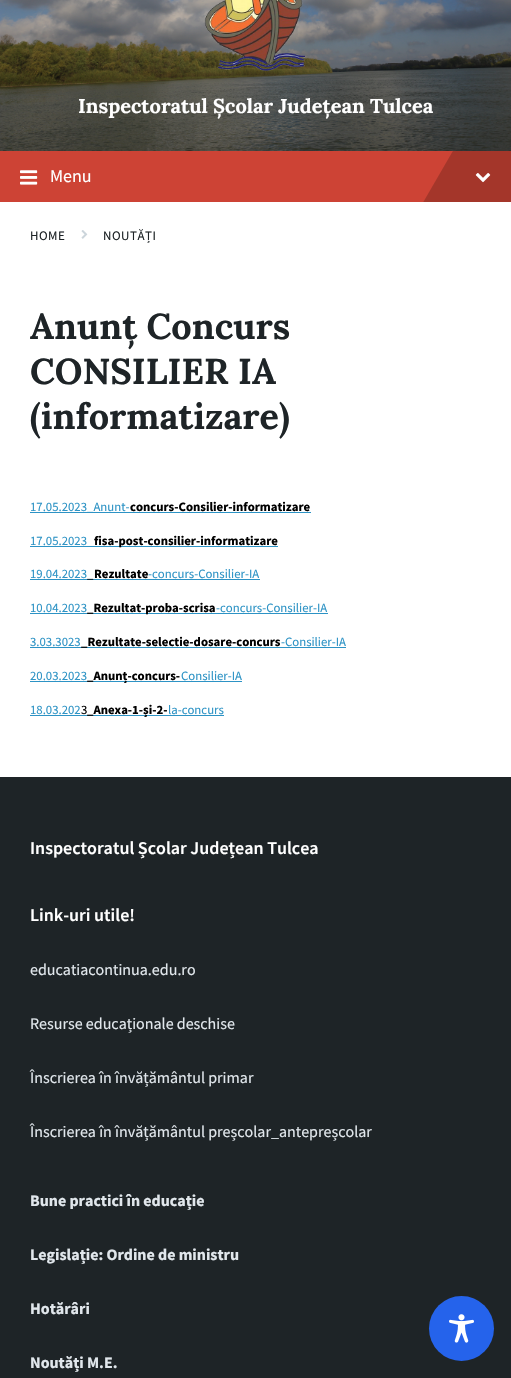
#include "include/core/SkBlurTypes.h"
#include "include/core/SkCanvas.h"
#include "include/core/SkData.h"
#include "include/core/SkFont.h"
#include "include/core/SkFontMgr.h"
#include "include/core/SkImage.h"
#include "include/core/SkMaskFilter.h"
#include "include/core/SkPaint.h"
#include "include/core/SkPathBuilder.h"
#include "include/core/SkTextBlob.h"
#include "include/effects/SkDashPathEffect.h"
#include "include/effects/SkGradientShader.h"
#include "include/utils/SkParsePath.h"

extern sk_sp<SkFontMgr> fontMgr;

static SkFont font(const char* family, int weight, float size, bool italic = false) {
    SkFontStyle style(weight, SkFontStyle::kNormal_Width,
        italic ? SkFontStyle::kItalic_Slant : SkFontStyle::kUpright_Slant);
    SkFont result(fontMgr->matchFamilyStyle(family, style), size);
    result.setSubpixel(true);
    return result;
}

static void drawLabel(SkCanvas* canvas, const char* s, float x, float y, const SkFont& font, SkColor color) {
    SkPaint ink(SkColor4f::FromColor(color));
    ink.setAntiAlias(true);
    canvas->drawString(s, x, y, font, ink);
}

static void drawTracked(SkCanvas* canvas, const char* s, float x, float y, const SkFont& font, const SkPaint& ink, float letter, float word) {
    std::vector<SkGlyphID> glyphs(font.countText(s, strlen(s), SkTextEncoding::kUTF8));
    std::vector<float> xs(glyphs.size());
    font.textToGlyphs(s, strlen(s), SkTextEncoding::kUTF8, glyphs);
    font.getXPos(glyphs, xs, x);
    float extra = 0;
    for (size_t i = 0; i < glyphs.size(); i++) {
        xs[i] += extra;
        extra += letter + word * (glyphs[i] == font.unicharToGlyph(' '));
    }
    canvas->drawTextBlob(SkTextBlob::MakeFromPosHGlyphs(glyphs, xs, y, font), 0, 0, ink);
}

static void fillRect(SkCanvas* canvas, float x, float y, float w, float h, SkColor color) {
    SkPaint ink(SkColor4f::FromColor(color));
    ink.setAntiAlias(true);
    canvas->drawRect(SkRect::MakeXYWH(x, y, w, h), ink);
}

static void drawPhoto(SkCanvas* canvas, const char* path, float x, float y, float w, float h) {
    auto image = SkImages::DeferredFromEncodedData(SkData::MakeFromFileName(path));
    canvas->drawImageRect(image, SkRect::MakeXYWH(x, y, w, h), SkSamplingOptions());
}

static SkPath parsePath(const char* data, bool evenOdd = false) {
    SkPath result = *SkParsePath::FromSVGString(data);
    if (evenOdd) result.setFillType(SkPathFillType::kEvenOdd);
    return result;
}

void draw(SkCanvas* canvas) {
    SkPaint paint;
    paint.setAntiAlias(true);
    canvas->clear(0xFFFFFFFF);
    drawPhoto(canvas, "assets/img1.png", 0, 0, 511, 151);
    drawPhoto(canvas, "assets/img2.png", 204, 0, 102, 71);
    SkFont font1 = font("Lora", 700, 20);
    drawLabel(canvas, "Inspectoratul Școlar Județean Tulcea", 78, 113, font1, 0xFFFFFFFF);
    fillRect(canvas, 0, 151, 453, 51, 0xFFCD4335);
    drawPhoto(canvas, "assets/img3.png", 20, 170, 18, 15);
    SkFont font2 = font("Source Sans Pro", 400, 18);
    drawLabel(canvas, "Menu", 50, 182, font2, 0xFFFFFFFF);
    canvas->save();
    canvas->clipRect(SkRect::MakeXYWH(0, 151, 511, 51));
    paint.setColor(0xFFA4362A);
    canvas->drawPath(parsePath("M472 118L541 158L490 246L421 206Z"), paint);
    canvas->restore();
    drawPhoto(canvas, "assets/img4.png", 475, 173, 16, 10);
    SkFont font3 = font("Source Sans Pro", 400, 13);
    paint.setColor(0xFF1E2427);
    drawTracked(canvas, "HOME", 30, 240, font3, paint, 0.5f, 0);
    drawPhoto(canvas, "assets/img5.png", 81, 230, 7, 9);
    drawTracked(canvas, "NOUTĂȚI", 103, 240, font3, paint, 0.5f, 0);
    SkFont font4 = font("Lora", 700, 36);
    drawLabel(canvas, "Anunț Concurs", 30, 339, font4, 0xFF1E2427);
    drawLabel(canvas, "CONSILIER IA", 30, 384, font4, 0xFF1E2427);
    drawLabel(canvas, "(informatizare)", 30, 429, font4, 0xFF1E2427);
    fillRect(canvas, 30, 512, 281, 1, 0xFF2D93C5);
    SkFont font5 = font("Source Sans Pro", 400, 12.75f);
    drawLabel(canvas, "17.05.2023_Anunt-", 30, 511, font5, 0xFF2D93C5);
    SkFont font6 = font("Source Sans Pro", 700, 12.75f);
    drawLabel(canvas, "concurs-Consilier-informatizare", 130, 511, font6, 0xFF000000);
    drawLabel(canvas, "17.05.2023", 30, 545, font5, 0xFF2D93C5);
    fillRect(canvas, 30, 546, 248, 1, 0xFF2D93C5);
    drawLabel(canvas, "fisa-post-consilier-informatizare", 94, 545, font6, 0xFF000000);
    drawLabel(canvas, "19.04.2023", 30, 578, font5, 0xFF2D93C5);
    fillRect(canvas, 30, 579, 230, 1, 0xFF2D93C5);
    drawLabel(canvas, "_", 87, 578, font5, 0xFF000000);
    drawLabel(canvas, "Rezultate", 94, 578, font6, 0xFF000000);
    drawLabel(canvas, "-concurs-Consilier-IA", 148, 578, font5, 0xFF2D93C5);
    drawLabel(canvas, "10.04.2023", 30, 612, font5, 0xFF2D93C5);
    fillRect(canvas, 30, 613, 298, 1, 0xFF2D93C5);
    drawLabel(canvas, "_Rezultat-proba-scrisa", 87, 612, font6, 0xFF000000);
    drawLabel(canvas, "-concurs-Consilier-IA", 216, 612, font5, 0xFF2D93C5);
    drawLabel(canvas, "3.03.3023", 30, 646, font5, 0xFF2D93C5);
    fillRect(canvas, 30, 647, 316, 1, 0xFF2D93C5);
    drawLabel(canvas, "_Rezultate-selectie-dosare-concurs", 81, 646, font6, 0xFF000000);
    drawLabel(canvas, "-Consilier-IA", 281, 646, font5, 0xFF2D93C5);
    drawLabel(canvas, "20.03.2023", 30, 680, font5, 0xFF2D93C5);
    fillRect(canvas, 30, 681, 212, 1, 0xFF2D93C5);
    drawLabel(canvas, "_Anunț-concurs-", 87, 680, font6, 0xFF000000);
    drawLabel(canvas, "Consilier-IA", 181, 680, font5, 0xFF2D93C5);
    drawLabel(canvas, "18.03.202", 30, 714, font5, 0xFF2D93C5);
    drawLabel(canvas, "3", 81, 714, font5, 0xFF000000);
    fillRect(canvas, 30, 715, 194, 1, 0xFF2D93C5);
    drawLabel(canvas, "_Anexa-1-și-2-", 87, 714, font6, 0xFF000000);
    drawLabel(canvas, "la-concurs", 168, 714, font5, 0xFF2D93C5);
    fillRect(canvas, 0, 777, 511, 601, 0xFF1E2427);
    SkFont font7 = font("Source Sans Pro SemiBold", 600, 18);
    drawLabel(canvas, "Inspectoratul Școlar Județean Tulcea", 30, 854, font7, 0xFFFFFFFF);
    drawLabel(canvas, "Link-uri utile!", 30, 921, font7, 0xFFFFFFFF);
    SkFont font8 = font("Source Sans Pro", 400, 16);
    drawLabel(canvas, "educatiacontinua.edu.ro", 30, 975, font8, 0xFFE1E7EC);
    drawLabel(canvas, "Resurse educaționale deschise", 30, 1029, font8, 0xFFE1E7EC);
    drawLabel(canvas, "Înscrierea în învățământul primar", 30, 1083, font8, 0xFFE1E7EC);
    drawLabel(canvas, "Înscrierea în învățământul preșcolar_antepreșcolar", 30, 1137, font8, 0xFFE1E7EC);
    SkFont font9 = font("Source Sans Pro", 700, 16);
    drawLabel(canvas, "Bune practici în educație", 30, 1206, font9, 0xFFE1E7EC);
    drawLabel(canvas, "Legislație: Ordine de ministru", 30, 1260, font9, 0xFFE1E7EC);
    drawLabel(canvas, "Hotărâri", 30, 1314, font9, 0xFFE1E7EC);
    drawLabel(canvas, "Noutăți M.E.", 30, 1368, font9, 0xFFE1E7EC);
    paint.setColor(0xFF2563EB);
    canvas->drawCircle(461.5f, 1328.5f, 32.5f, paint);
    drawPhoto(canvas, "assets/img6.png", 449, 1314, 25, 29);
}
